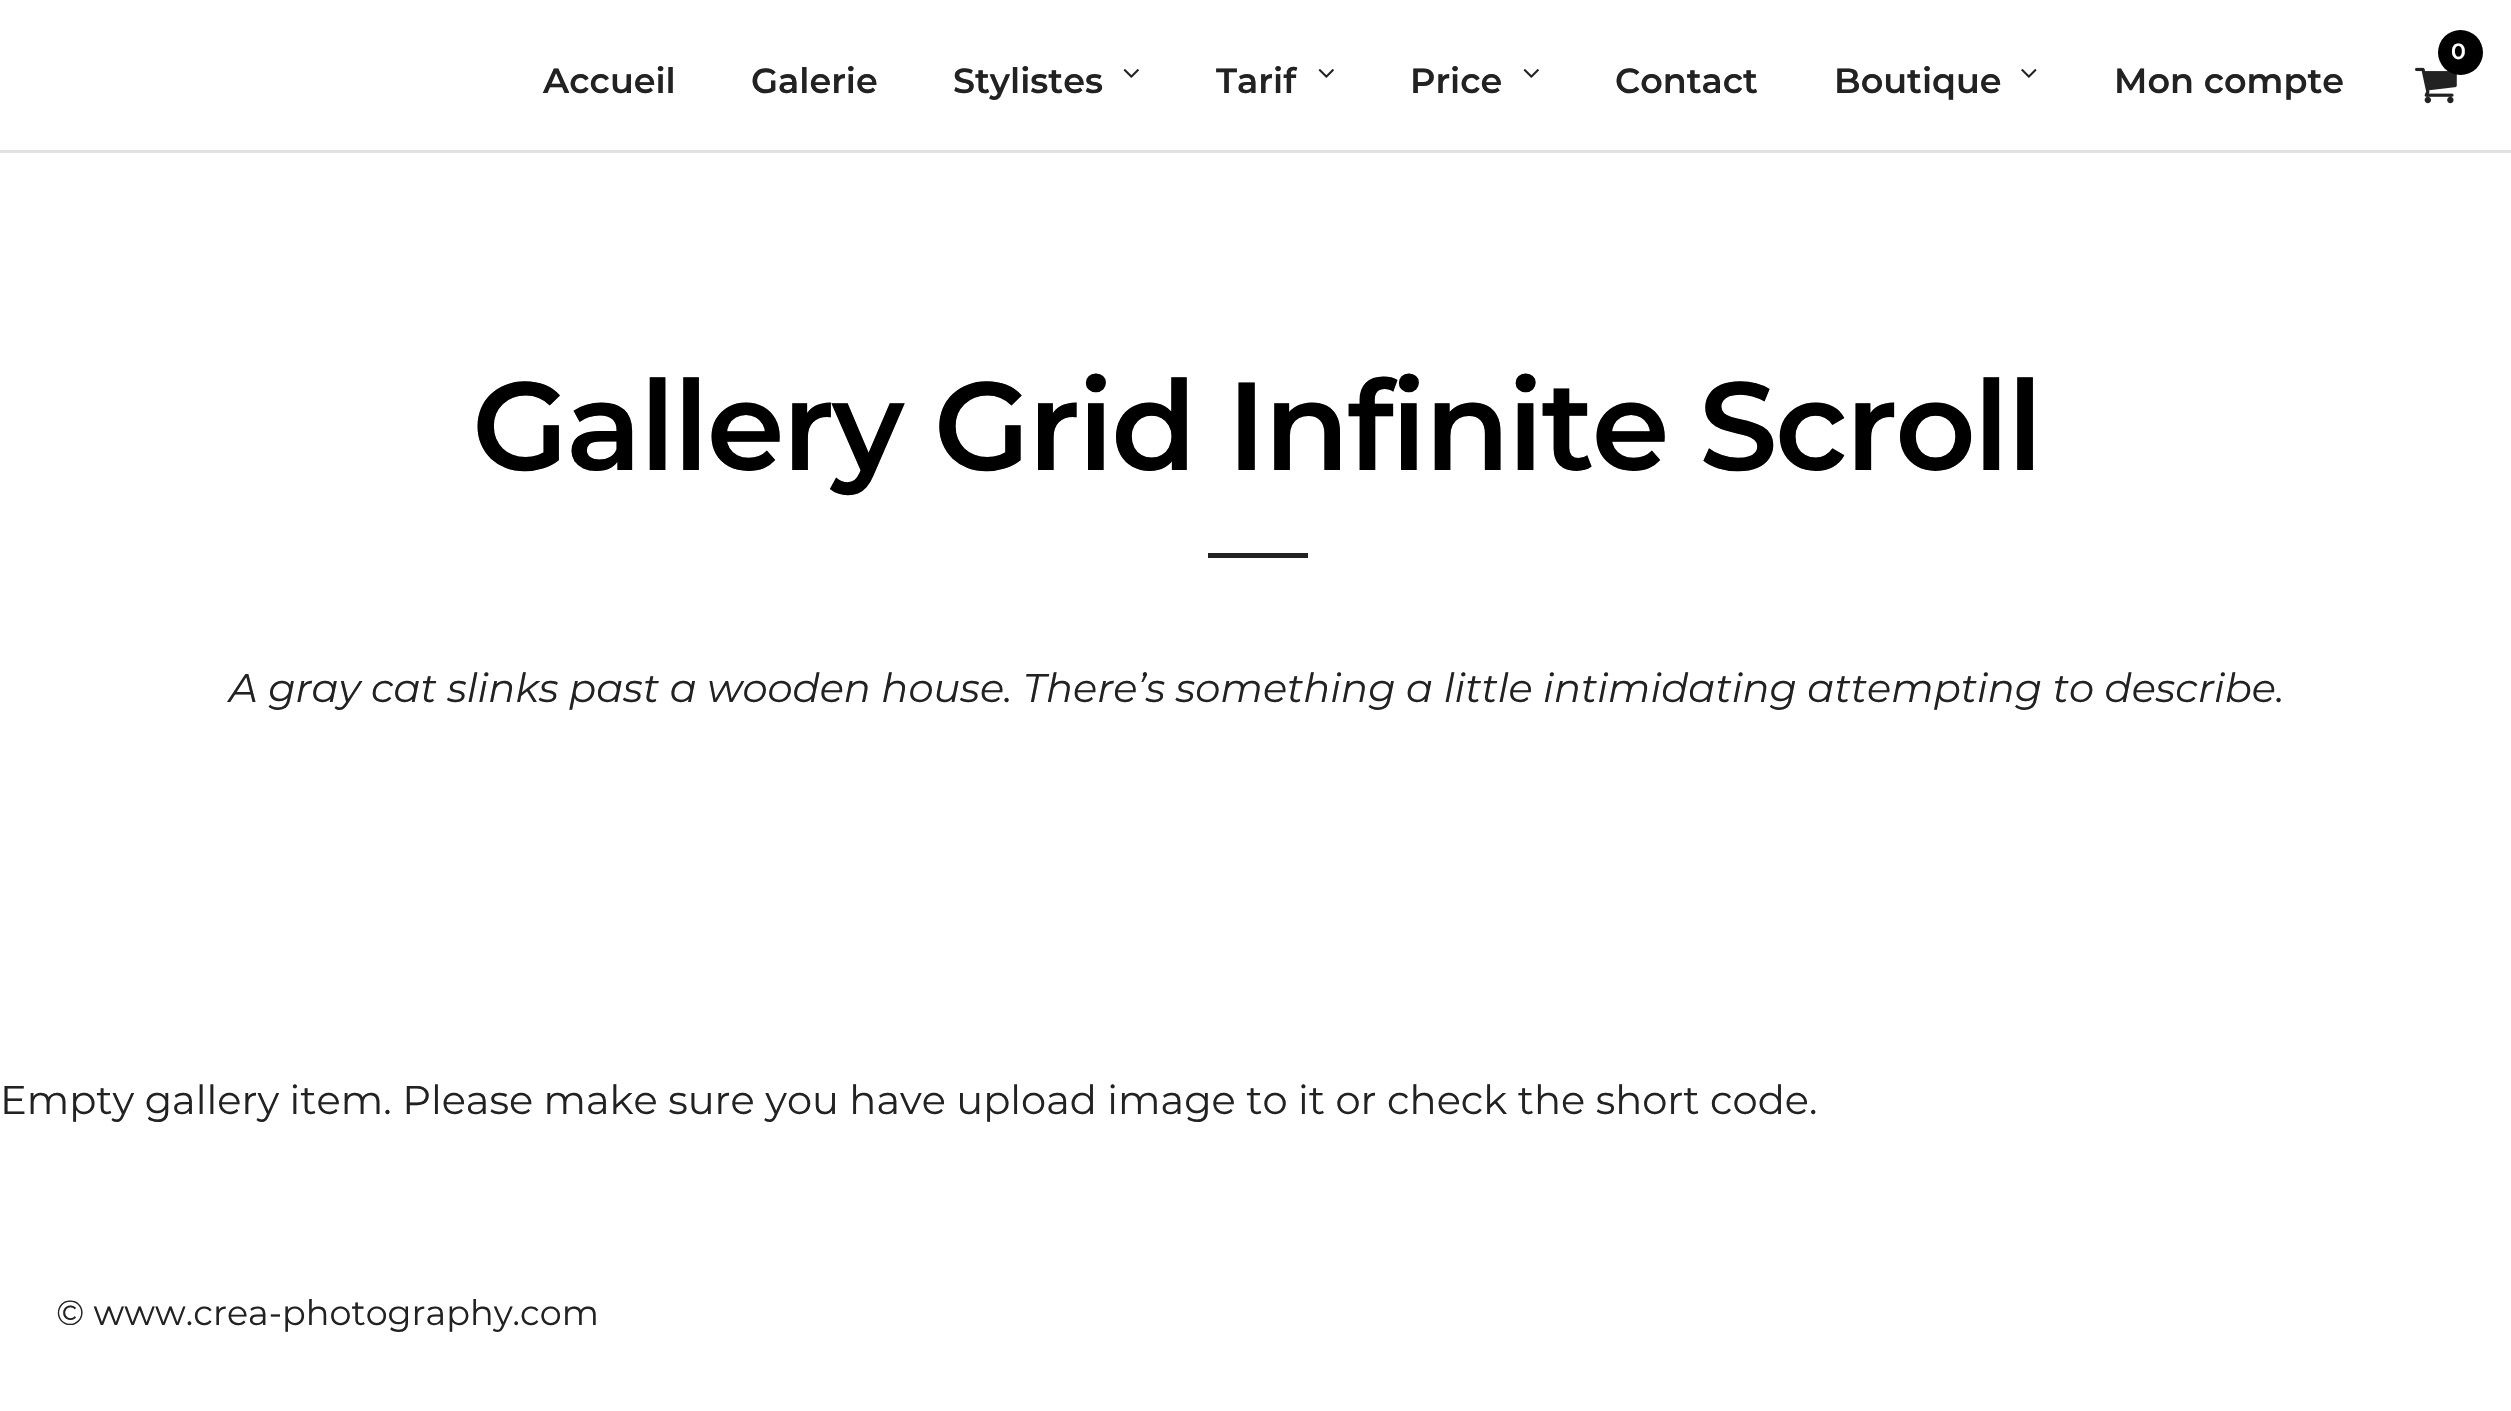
#include "include/core/SkBlurTypes.h"
#include "include/core/SkCanvas.h"
#include "include/core/SkData.h"
#include "include/core/SkFont.h"
#include "include/core/SkFontMgr.h"
#include "include/core/SkImage.h"
#include "include/core/SkMaskFilter.h"
#include "include/core/SkPaint.h"
#include "include/core/SkPathBuilder.h"
#include "include/core/SkTextBlob.h"
#include "include/effects/SkDashPathEffect.h"
#include "include/effects/SkGradientShader.h"
#include "include/utils/SkParsePath.h"

extern sk_sp<SkFontMgr> fontMgr;

static SkFont font(const char* family, int weight, float size, bool italic = false) {
    SkFontStyle style(weight, SkFontStyle::kNormal_Width,
        italic ? SkFontStyle::kItalic_Slant : SkFontStyle::kUpright_Slant);
    SkFont result(fontMgr->matchFamilyStyle(family, style), size);
    result.setSubpixel(true);
    return result;
}

static void drawLabel(SkCanvas* canvas, const char* s, float x, float y, const SkFont& font, SkColor color) {
    SkPaint ink(SkColor4f::FromColor(color));
    ink.setAntiAlias(true);
    canvas->drawString(s, x, y, font, ink);
}

static void drawTracked(SkCanvas* canvas, const char* s, float x, float y, const SkFont& font, const SkPaint& ink, float letter, float word) {
    std::vector<SkGlyphID> glyphs(font.countText(s, strlen(s), SkTextEncoding::kUTF8));
    std::vector<float> xs(glyphs.size());
    font.textToGlyphs(s, strlen(s), SkTextEncoding::kUTF8, glyphs);
    font.getXPos(glyphs, xs, x);
    float extra = 0;
    for (size_t i = 0; i < glyphs.size(); i++) {
        xs[i] += extra;
        extra += letter + word * (glyphs[i] == font.unicharToGlyph(' '));
    }
    canvas->drawTextBlob(SkTextBlob::MakeFromPosHGlyphs(glyphs, xs, y, font), 0, 0, ink);
}

static void fillRect(SkCanvas* canvas, float x, float y, float w, float h, SkColor color) {
    SkPaint ink(SkColor4f::FromColor(color));
    ink.setAntiAlias(true);
    canvas->drawRect(SkRect::MakeXYWH(x, y, w, h), ink);
}

static void drawPhoto(SkCanvas* canvas, const char* path, float x, float y, float w, float h) {
    auto image = SkImages::DeferredFromEncodedData(SkData::MakeFromFileName(path));
    canvas->drawImageRect(image, SkRect::MakeXYWH(x, y, w, h), SkSamplingOptions());
}

void draw(SkCanvas* canvas) {
    SkPaint paint;
    paint.setAntiAlias(true);
    canvas->clear(0xFFFFFFFF);
    fillRect(canvas, 0, 150, 2511, 3, 0xFFE1E1E1);
    drawPhoto(canvas, "assets/img1.png", 2415, 67, 42, 37);
    paint.setColor(0xFF000000);
    canvas->drawCircle(2460.5f, 52.5f, 22.5f, paint);
    SkFont font1 = font("Montserrat", 600, 22);
    drawLabel(canvas, "0", 2451, 59, font1, 0xFFFFFFFF);
    SkFont font2 = font("Montserrat", 600, 35);
    drawLabel(canvas, "Accueil", 543, 93, font2, 0xFF222222);
    drawLabel(canvas, "Galerie", 751, 93, font2, 0xFF222222);
    drawLabel(canvas, "Stylistes", 953, 93, font2, 0xFF222222);
    drawPhoto(canvas, "assets/img2.png", 1123, 69, 16, 9);
    drawLabel(canvas, "Tarif", 1216, 93, font2, 0xFF222222);
    drawPhoto(canvas, "assets/img2.png", 1318, 69, 16, 9);
    drawLabel(canvas, "Price", 1410, 93, font2, 0xFF222222);
    drawPhoto(canvas, "assets/img2.png", 1523, 69, 16, 9);
    drawLabel(canvas, "Contact", 1615, 93, font2, 0xFF222222);
    drawLabel(canvas, "Boutique", 1834, 93, font2, 0xFF222222);
    drawPhoto(canvas, "assets/img3.png", 2021, 69, 16, 9);
    drawLabel(canvas, "Mon compte", 2114, 93, font2, 0xFF222222);
    SkFont font3 = font("Montserrat", 600, 125);
    drawTracked(canvas, "Gallery Grid Infinite Scroll", 472, 470, font3, paint, -2.5f, 0);
    fillRect(canvas, 1208, 553, 100, 5, 0xFF222222);
    SkFont font4 = font("Montserrat", 100, 40, true);
    drawLabel(canvas, "A gray cat slinks past a wooden house. There’s something a little intimidating attempting to describe.", 229, 702, font4, 0xFF222222);
    SkFont font5 = font("Montserrat", 400, 40);
    drawLabel(canvas, "Empty gallery item. Please make sure you have upload image to it or check the short code.", 0, 1114, font5, 0xFF222222);
    SkFont font6 = font("Montserrat", 400, 35);
    drawLabel(canvas, "© www.crea-photography.com", 56, 1325, font6, 0xFF222222);
}
